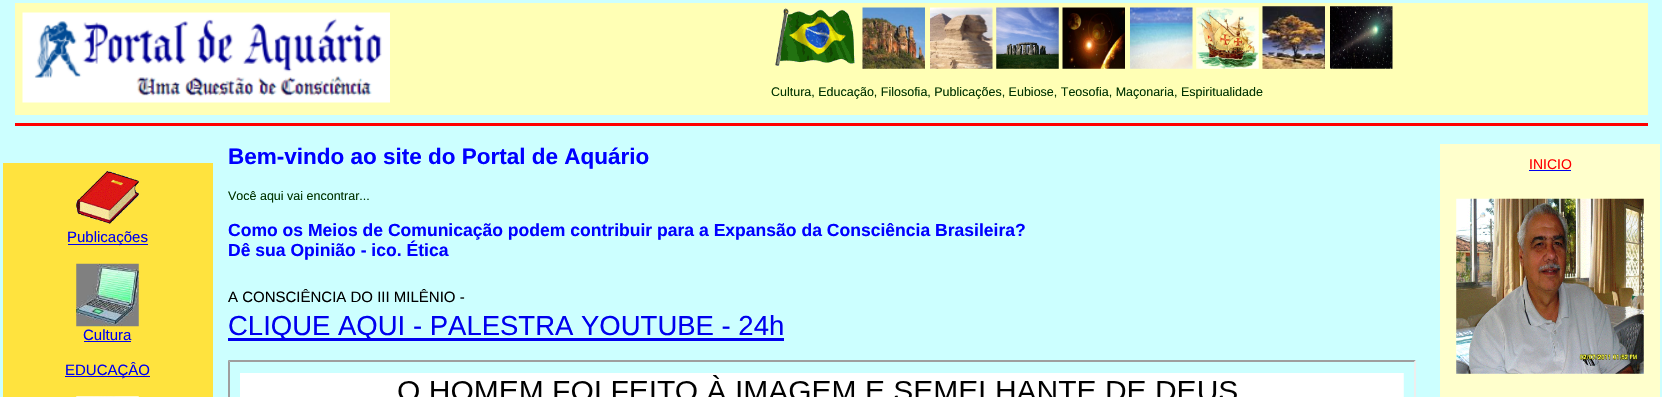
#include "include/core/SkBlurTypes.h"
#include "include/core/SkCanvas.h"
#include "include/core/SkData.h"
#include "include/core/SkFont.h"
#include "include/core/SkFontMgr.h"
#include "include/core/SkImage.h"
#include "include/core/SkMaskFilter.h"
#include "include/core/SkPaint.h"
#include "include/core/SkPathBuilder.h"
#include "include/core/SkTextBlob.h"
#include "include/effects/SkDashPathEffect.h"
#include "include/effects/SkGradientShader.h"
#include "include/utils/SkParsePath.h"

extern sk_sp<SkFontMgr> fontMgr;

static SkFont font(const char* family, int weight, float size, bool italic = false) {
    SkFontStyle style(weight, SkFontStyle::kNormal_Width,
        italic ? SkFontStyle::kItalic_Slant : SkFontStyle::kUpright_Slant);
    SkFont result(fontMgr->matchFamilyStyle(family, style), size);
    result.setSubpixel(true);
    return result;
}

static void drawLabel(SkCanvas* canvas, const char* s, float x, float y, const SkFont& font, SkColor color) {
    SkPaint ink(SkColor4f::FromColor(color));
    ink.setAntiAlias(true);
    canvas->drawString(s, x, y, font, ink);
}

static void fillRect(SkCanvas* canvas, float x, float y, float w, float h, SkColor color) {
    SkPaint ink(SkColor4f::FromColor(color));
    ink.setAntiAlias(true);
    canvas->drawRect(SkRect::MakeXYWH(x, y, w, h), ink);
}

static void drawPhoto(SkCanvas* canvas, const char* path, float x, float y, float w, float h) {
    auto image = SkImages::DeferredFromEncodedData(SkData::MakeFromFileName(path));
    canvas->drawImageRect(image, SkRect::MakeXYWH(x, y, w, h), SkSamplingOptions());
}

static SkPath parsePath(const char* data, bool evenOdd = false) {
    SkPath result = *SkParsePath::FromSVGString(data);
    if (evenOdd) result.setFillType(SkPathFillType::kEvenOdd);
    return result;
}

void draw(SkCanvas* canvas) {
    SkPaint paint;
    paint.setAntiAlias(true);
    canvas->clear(0xFFCCFFFF);
    fillRect(canvas, 15, 3, 1633, 112, 0xFFFFFFB5);
    drawPhoto(canvas, "assets/img1.png", 22, 12, 368, 91);
    drawPhoto(canvas, "assets/img2.png", 775, 8, 80, 58);
    drawPhoto(canvas, "assets/img3.png", 862, 7, 63, 62);
    drawPhoto(canvas, "assets/img4.png", 930, 7, 63, 62);
    drawPhoto(canvas, "assets/img5.png", 996, 7, 63, 62);
    drawPhoto(canvas, "assets/img6.png", 1062, 7, 63, 62);
    drawPhoto(canvas, "assets/img7.png", 1130, 7, 63, 62);
    drawPhoto(canvas, "assets/img8.png", 1196, 7, 63, 62);
    drawPhoto(canvas, "assets/img9.png", 1262, 6, 63, 63);
    drawPhoto(canvas, "assets/img10.png", 1330, 6, 63, 63);
    SkFont font1 = font("Liberation Sans", 400, 12.5f);
    drawLabel(canvas, "Cultura, Educação, Filosofia, Publicações, Eubiose, Teosofia, Maçonaria, Espiritualidade", 771, 96, font1, 0xFF003300);
    fillRect(canvas, 15, 123, 1633, 3, 0xFFFF0000);
    SkFont font2 = font("Liberation Sans", 700, 22.5f);
    drawLabel(canvas, "Bem-vindo ao site do Portal de Aquário", 228, 164, font2, 0xFF0000FF);
    drawLabel(canvas, "Você aqui vai encontrar...", 228, 200, font1, 0xFF003300);
    SkFont font3 = font("Liberation Sans", 700, 17.55f);
    drawLabel(canvas, "Como os Meios de Comunicação podem contribuir para a Expansão da Consciência Brasileira?", 228, 236, font3, 0xFF0000FF);
    drawLabel(canvas, "Dê sua Opinião - ico. Ética", 228, 256, font3, 0xFF0000FF);
    SkFont font4 = font("Liberation Sans", 400, 15);
    drawLabel(canvas, "A CONSCIÊNCIA DO III MILÊNIO -", 228, 302, font4, 0xFF000000);
    fillRect(canvas, 228, 338, 556, 3, 0xFF0000EE);
    SkFont font5 = font("Liberation Sans", 400, 27.5f);
    drawLabel(canvas, "CLIQUE AQUI - PALESTRA YOUTUBE - 24h", 228, 335, font5, 0xFF0000EE);
    paint.setColor(0xFF9F9F9F);
    canvas->drawPath(parsePath("M228 360H1416L1414 362H230Z"), paint);
    canvas->drawPath(parsePath("M228 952V360L230 362V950Z"), paint);
    drawPhoto(canvas, "assets/img11.png", 240, 373, 1164, 24);
    paint.setColor(0xFFEEEEEE);
    canvas->drawPath(parsePath("M1416 360V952L1414 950V362Z"), paint);
    fillRect(canvas, 1440, 144, 220, 253, 0xFFFFFFCC);
    SkFont font6 = font("Liberation Sans", 400, 14);
    drawLabel(canvas, "INICIO", 1529, 169, font6, 0xFFFF0000);
    fillRect(canvas, 1529, 170, 42, 1, 0xFF0000EE);
    drawPhoto(canvas, "assets/img12.png", 1456, 198, 188, 176);
    fillRect(canvas, 3, 163, 210, 234, 0xFFFFE33E);
    drawPhoto(canvas, "assets/img13.png", 76, 171, 63, 53);
    fillRect(canvas, 68, 244, 80, 1, 0xFF0000EE);
    drawLabel(canvas, "Publicações", 67, 242, font4, 0xFF0000EE);
    drawPhoto(canvas, "assets/img14.png", 76, 263, 63, 64);
    drawLabel(canvas, "Cultura", 83, 340, font4, 0xFF0000EE);
    fillRect(canvas, 84, 341, 47, 1, 0xFF0000EE);
    fillRect(canvas, 65, 376, 85, 1, 0xFF0000EE);
    drawLabel(canvas, "EDUCAÇÂO", 65, 375, font4, 0xFF0000EE);
    drawPhoto(canvas, "assets/img15.png", 76, 396, 63, 1);
}
